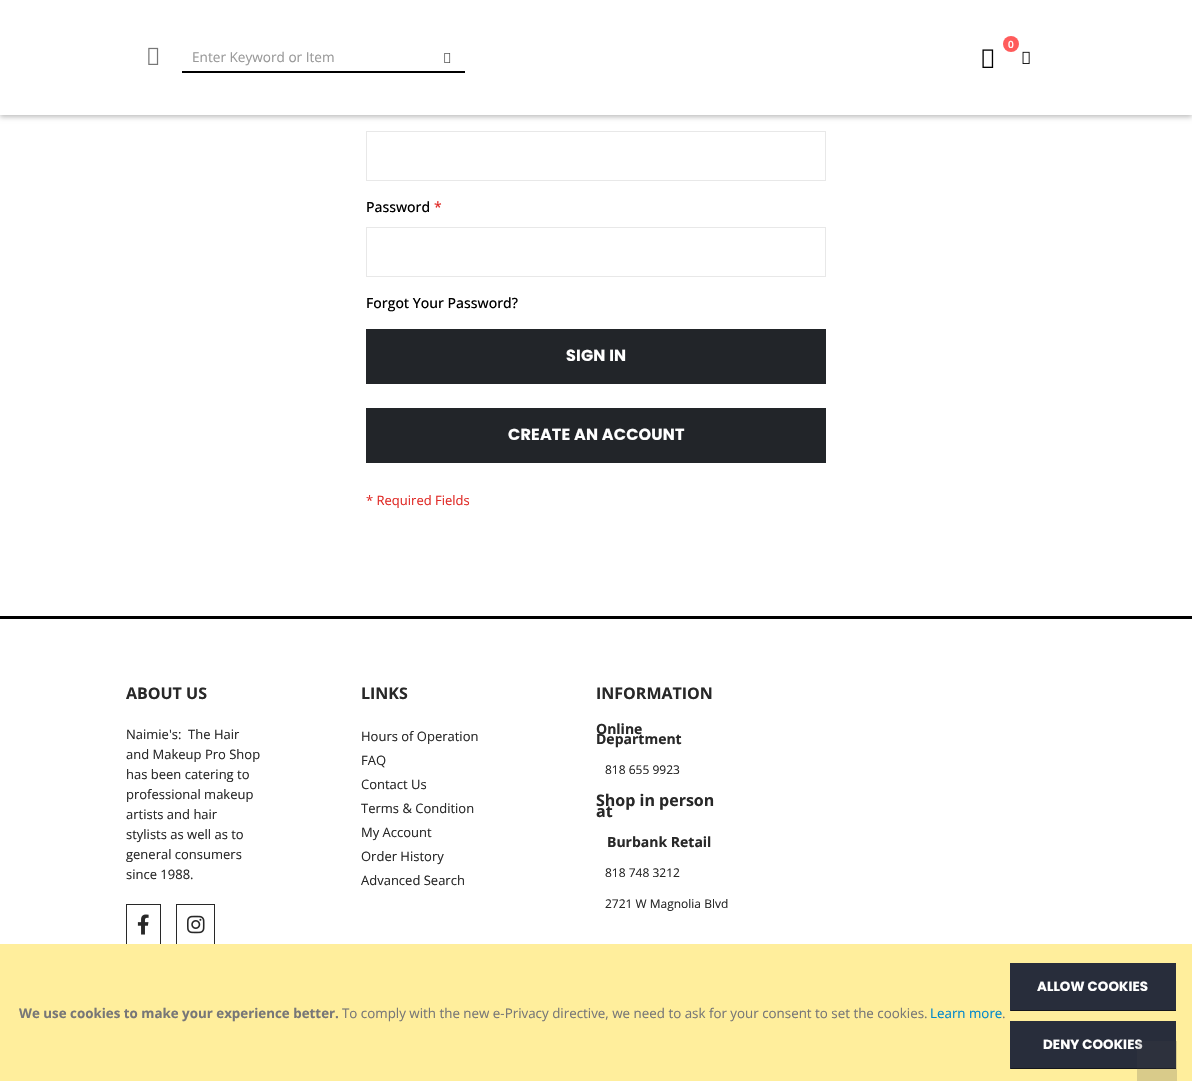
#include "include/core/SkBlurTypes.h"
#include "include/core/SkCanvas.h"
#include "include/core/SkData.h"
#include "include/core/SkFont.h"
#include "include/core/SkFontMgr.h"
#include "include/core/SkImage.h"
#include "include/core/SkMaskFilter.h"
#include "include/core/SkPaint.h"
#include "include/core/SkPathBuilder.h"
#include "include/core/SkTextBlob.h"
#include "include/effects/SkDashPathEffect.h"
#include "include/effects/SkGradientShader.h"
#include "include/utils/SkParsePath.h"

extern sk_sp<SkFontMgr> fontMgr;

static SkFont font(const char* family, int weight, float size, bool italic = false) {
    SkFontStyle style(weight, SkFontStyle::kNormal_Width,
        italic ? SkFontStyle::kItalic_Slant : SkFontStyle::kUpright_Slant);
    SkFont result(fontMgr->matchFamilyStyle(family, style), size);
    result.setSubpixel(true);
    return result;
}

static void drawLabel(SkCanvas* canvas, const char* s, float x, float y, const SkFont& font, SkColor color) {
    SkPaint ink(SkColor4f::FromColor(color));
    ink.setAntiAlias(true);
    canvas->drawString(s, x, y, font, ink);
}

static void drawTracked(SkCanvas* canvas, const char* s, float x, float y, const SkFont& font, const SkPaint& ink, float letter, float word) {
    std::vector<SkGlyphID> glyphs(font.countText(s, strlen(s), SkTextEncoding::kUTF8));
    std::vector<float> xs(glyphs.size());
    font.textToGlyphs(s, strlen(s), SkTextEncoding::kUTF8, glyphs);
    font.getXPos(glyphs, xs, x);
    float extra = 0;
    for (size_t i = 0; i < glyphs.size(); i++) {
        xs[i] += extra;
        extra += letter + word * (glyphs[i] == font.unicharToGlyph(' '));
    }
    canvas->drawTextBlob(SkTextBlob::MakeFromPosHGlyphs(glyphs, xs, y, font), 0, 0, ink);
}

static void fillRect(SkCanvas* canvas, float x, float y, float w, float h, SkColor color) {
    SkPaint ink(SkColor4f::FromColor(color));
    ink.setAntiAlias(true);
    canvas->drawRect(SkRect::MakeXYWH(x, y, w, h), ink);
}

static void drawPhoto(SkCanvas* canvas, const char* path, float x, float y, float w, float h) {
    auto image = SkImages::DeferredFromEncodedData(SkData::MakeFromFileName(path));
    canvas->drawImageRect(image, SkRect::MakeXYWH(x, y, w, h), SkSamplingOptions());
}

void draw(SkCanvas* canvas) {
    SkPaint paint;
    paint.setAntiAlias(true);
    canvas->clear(0xFFFFFFFF);
    paint.setColor(0xFFBDBDBD);
    paint.setMaskFilter(SkMaskFilter::MakeBlur(kNormal_SkBlurStyle, 2.5f));
    canvas->drawRect(SkRect::MakeXYWH(0, 2, 1192, 115), paint);
    paint.setMaskFilter(nullptr);
    fillRect(canvas, 0, 0, 1192, 115, 0xFFFFFFFF);
    paint.setColor(0xFFFF5B5B);
    canvas->drawCircle(1011, 44, 8, paint);
    SkFont font1 = font("Open Sans", 600, 10);
    drawLabel(canvas, "0", 1008, 48, font1, 0xFFFFFFFF);
    drawPhoto(canvas, "assets/img1.png", 982, 49, 12, 19);
    drawPhoto(canvas, "assets/img2.png", 1022, 51, 8, 13);
    drawPhoto(canvas, "assets/img3.png", 148, 47, 11, 18);
    fillRect(canvas, 182, 71, 283, 2, 0xFF000000);
    SkFont font2 = font("Open Sans", 400, 13.6f);
    drawLabel(canvas, "Enter Keyword or Item", 192, 62, font2, 0xFF999999);
    drawPhoto(canvas, "assets/img4.png", 444, 53, 7, 10);
    paint.setStroke(true);
    paint.setStrokeWidth(1);
    paint.setColor(0xFFE8E8E8);
    canvas->drawRect(SkRect::MakeXYWH(366.5f, 131.5f, 459, 49), paint);
    SkFont font3 = font("Open Sans", 500, 14);
    drawLabel(canvas, "Password", 366, 212, font3, 0xFF000000);
    drawLabel(canvas, "*", 434, 212, font3, 0xFFE02B27);
    canvas->drawRect(SkRect::MakeXYWH(366.5f, 227.5f, 459, 49), paint);
    drawLabel(canvas, "Forgot Your Password?", 366, 308, font3, 0xFF000000);
    fillRect(canvas, 366, 329, 460, 55, 0xFF222529);
    SkFont font4 = font("Poppins", 700, 16);
    paint.setStroke(false);
    paint.setColor(0xFFFFFFFF);
    drawTracked(canvas, "SIGN IN", 566, 361, font4, paint, 0.2f, 0);
    fillRect(canvas, 366, 408, 460, 55, 0xFF222529);
    drawTracked(canvas, "CREATE AN ACCOUNT", 508, 440, font4, paint, 0.2f, 0);
    SkFont font5 = font("Open Sans", 400, 13);
    drawLabel(canvas, "* Required Fields", 366, 505, font5, 0xFFE02B27);
    fillRect(canvas, 0, 616, 1192, 3, 0xFF000000);
    SkFont font6 = font("Open Sans", 700, 16);
    drawLabel(canvas, "ABOUT US", 126, 699, font6, 0xFF282828);
    drawLabel(canvas, "Naimie's:  The Hair", 126, 739, font5, 0xFF282828);
    drawLabel(canvas, "and Makeup Pro Shop", 126, 759, font5, 0xFF282828);
    drawLabel(canvas, "has been catering to", 126, 779, font5, 0xFF282828);
    drawLabel(canvas, "professional makeup", 126, 799, font5, 0xFF282828);
    drawLabel(canvas, "artists and hair", 126, 819, font5, 0xFF282828);
    drawLabel(canvas, "stylists as well as to", 126, 839, font5, 0xFF282828);
    drawLabel(canvas, "general consumers", 126, 859, font5, 0xFF282828);
    drawLabel(canvas, "since 1988.", 126, 879, font5, 0xFF282828);
    paint.setStroke(true);
    paint.setColor(0xFF282828);
    canvas->drawRect(SkRect::MakeXYWH(126.5f, 904.5f, 34, 41), paint);
    drawPhoto(canvas, "assets/img5.png", 137, 914, 12, 21);
    canvas->drawRect(SkRect::MakeXYWH(176.5f, 904.5f, 38, 41), paint);
    drawPhoto(canvas, "assets/img6.png", 187, 915, 18, 19);
    drawLabel(canvas, "LINKS", 361, 699, font6, 0xFF282828);
    drawLabel(canvas, "Hours of Operation", 361, 741, font5, 0xFF282828);
    drawLabel(canvas, "FAQ", 361, 765, font5, 0xFF282828);
    drawLabel(canvas, "Contact Us", 361, 789, font5, 0xFF282828);
    drawLabel(canvas, "Terms & Condition", 361, 813, font5, 0xFF282828);
    drawLabel(canvas, "My Account", 361, 837, font5, 0xFF282828);
    drawLabel(canvas, "Order History", 361, 861, font5, 0xFF282828);
    drawLabel(canvas, "Advanced Search", 361, 885, font5, 0xFF282828);
    drawLabel(canvas, "INFORMATION", 596, 699, font6, 0xFF282828);
    SkFont font7 = font("Open Sans", 700, 14);
    drawLabel(canvas, "Online", 596, 734, font7, 0xFF282828);
    drawLabel(canvas, "Department", 596, 744, font7, 0xFF282828);
    SkFont font8 = font("Open Sans", 400, 12);
    drawLabel(canvas, "818 655 9923", 605, 774, font8, 0xFF282828);
    drawLabel(canvas, "Shop in person", 596, 806, font6, 0xFF282828);
    drawLabel(canvas, "at", 596, 817, font6, 0xFF282828);
    drawLabel(canvas, "Burbank Retail", 607, 847, font7, 0xFF282828);
    drawLabel(canvas, "818 748 3212", 605, 877, font8, 0xFF282828);
    drawLabel(canvas, "2721 W Magnolia Blvd", 605, 908, font8, 0xFF282828);
    fillRect(canvas, 0, 944, 1192, 137, 0xFFFFEE9C);
    fillRect(canvas, 1011, 1021, 165, 47, 0xFF282D3B);
    fillRect(canvas, 1010, 1068, 166, 1, 0xFF14161D);
    SkFont font9 = font("Poppins", 700, 13.35f);
    paint.setStroke(false);
    paint.setColor(0xFFFFFFFF);
    drawTracked(canvas, "DENY COOKIES", 1043, 1049, font9, paint, 0.1f, 0);
    fillRect(canvas, 1137, 1041, 40, 40, 0x33404040);
    SkFont font10 = font("Open Sans", 700, 13.35f);
    drawLabel(canvas, "We use cookies to make your experience better.", 19, 1018, font10, 0xFF777777);
    SkFont font11 = font("Open Sans", 400, 13.35f);
    drawLabel(canvas, "To comply with the new e-Privacy directive, we need to ask for your consent to set the cookies.", 342, 1018, font11, 0xFF777777);
    drawLabel(canvas, "Learn more", 930, 1018, font11, 0xFF0088CC);
    drawLabel(canvas, ".", 1002, 1018, font11, 0xFF777777);
    fillRect(canvas, 1011, 963, 165, 47, 0xFF282D3B);
    fillRect(canvas, 1010, 1010, 166, 1, 0xFF14161D);
    fillRect(canvas, 1010, 963, 1, 48, 0xFF282D3B);
    drawTracked(canvas, "ALLOW COOKIES", 1037, 991, font9, paint, 0.1f, 0);
    fillRect(canvas, 1010, 1021, 1, 48, 0xFF282D3B);
}
